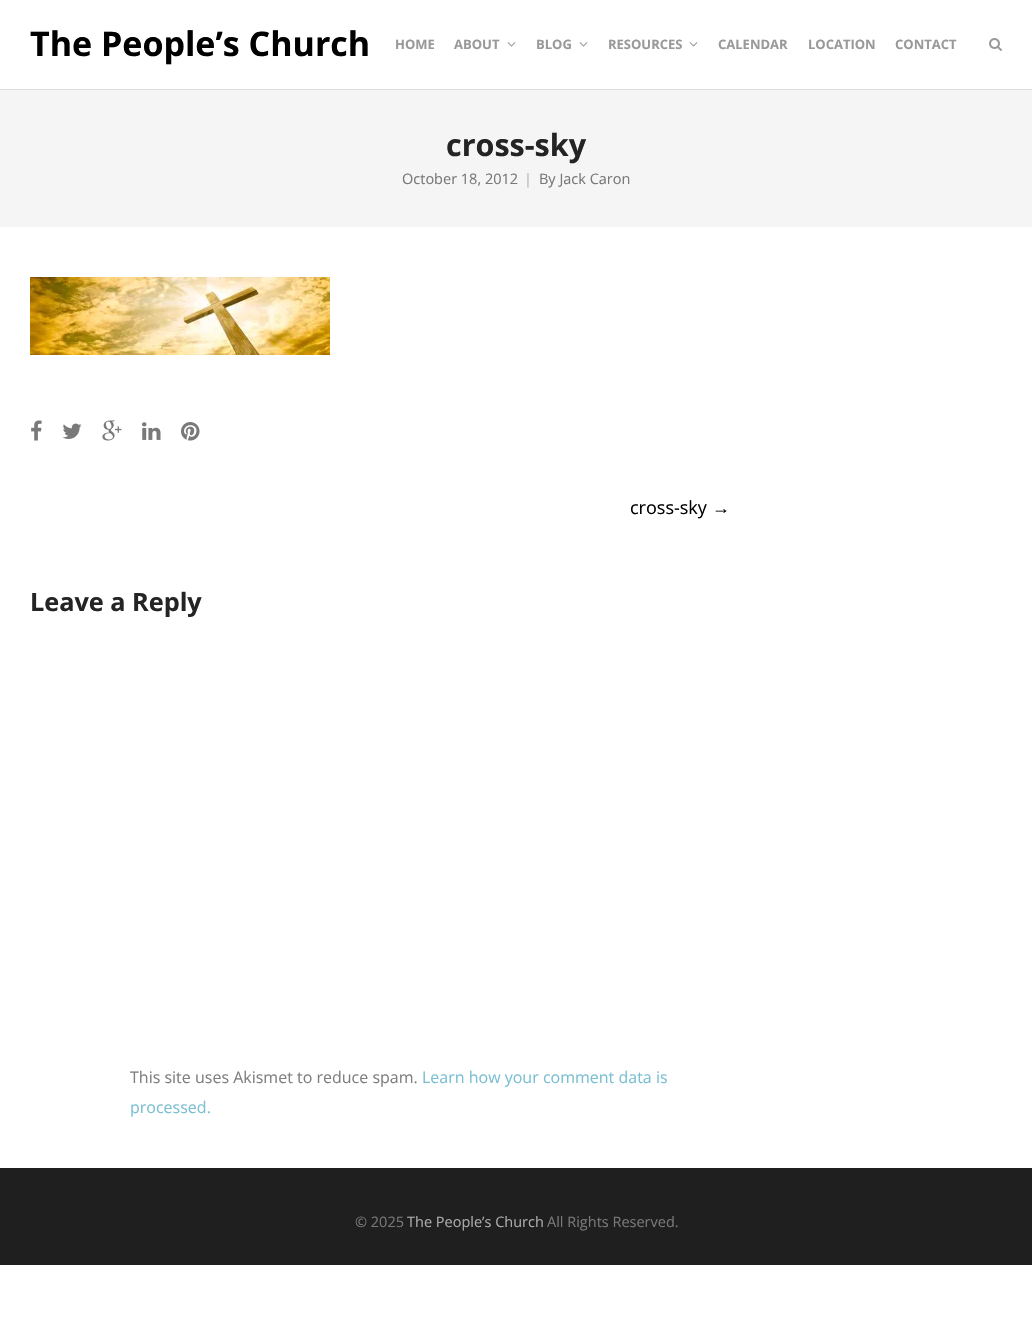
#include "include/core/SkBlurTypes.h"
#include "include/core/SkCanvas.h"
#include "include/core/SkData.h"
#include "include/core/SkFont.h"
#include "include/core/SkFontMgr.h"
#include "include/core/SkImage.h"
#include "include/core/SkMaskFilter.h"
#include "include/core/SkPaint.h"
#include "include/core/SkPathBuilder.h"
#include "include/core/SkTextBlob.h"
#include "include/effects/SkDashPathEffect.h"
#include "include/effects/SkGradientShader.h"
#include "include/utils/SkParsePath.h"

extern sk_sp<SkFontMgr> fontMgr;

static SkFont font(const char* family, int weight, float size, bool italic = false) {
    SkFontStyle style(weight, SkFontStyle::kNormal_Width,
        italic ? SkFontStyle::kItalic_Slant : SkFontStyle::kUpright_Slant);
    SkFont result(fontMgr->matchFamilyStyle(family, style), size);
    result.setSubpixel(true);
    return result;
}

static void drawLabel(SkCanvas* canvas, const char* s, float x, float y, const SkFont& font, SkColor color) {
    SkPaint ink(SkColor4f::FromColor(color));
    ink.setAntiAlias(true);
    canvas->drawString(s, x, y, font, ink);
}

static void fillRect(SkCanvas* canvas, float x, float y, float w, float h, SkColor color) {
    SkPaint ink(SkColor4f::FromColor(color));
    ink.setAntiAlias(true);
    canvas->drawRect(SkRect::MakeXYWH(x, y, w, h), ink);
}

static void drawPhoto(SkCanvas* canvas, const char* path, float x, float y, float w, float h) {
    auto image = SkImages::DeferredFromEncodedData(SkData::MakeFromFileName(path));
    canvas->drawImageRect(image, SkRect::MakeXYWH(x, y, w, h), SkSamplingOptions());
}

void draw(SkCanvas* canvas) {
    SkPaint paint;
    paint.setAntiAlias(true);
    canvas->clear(0xFFFFFFFF);
    fillRect(canvas, 0, 89, 1032, 1, 0xFFDDDDDD);
    SkFont font1 = font("Open Sans", 700, 34);
    drawLabel(canvas, "The People’s Church", 30, 56, font1, 0xFF000000);
    SkFont font2 = font("Open Sans", 700, 13);
    drawLabel(canvas, "HOME", 395, 49, font2, 0xFF999999);
    drawLabel(canvas, "ABOUT", 454, 49, font2, 0xFF999999);
    drawPhoto(canvas, "assets/img1.png", 507, 42, 9, 5);
    drawLabel(canvas, "BLOG", 536, 49, font2, 0xFF999999);
    drawPhoto(canvas, "assets/img1.png", 579, 42, 9, 5);
    drawLabel(canvas, "RESOURCES", 608, 49, font2, 0xFF999999);
    drawPhoto(canvas, "assets/img1.png", 689, 42, 9, 5);
    drawLabel(canvas, "CALENDAR", 718, 49, font2, 0xFF999999);
    drawLabel(canvas, "LOCATION", 808, 49, font2, 0xFF999999);
    drawLabel(canvas, "CONTACT", 895, 49, font2, 0xFF999999);
    drawPhoto(canvas, "assets/img2.png", 989, 38, 13, 13);
    fillRect(canvas, 0, 90, 1032, 137, 0xFFF5F5F5);
    SkFont font3 = font("Open Sans", 700, 30.5f);
    drawLabel(canvas, "cross-sky", 446, 156, font3, 0xFF242424);
    SkFont font4 = font("Open Sans", 400, 14.5f);
    drawLabel(canvas, "October 18, 2012", 402, 184, font4, 0xFF787878);
    drawLabel(canvas, "|", 524, 184, font4, 0xFFB6B6B6);
    drawLabel(canvas, "By Jack Caron", 539, 184, font4, 0xFF787878);
    drawPhoto(canvas, "assets/img3.png", 30, 277, 300, 78);
    drawPhoto(canvas, "assets/img4.png", 31, 420, 11, 21);
    drawPhoto(canvas, "assets/img5.png", 62, 423, 20, 16);
    drawPhoto(canvas, "assets/img6.png", 102, 420, 20, 21);
    drawPhoto(canvas, "assets/img7.png", 142, 422, 19, 18);
    drawPhoto(canvas, "assets/img8.png", 181, 422, 19, 19);
    SkFont font5 = font("Open Sans", 400, 18);
    drawLabel(canvas, "cross-sky", 630, 514, font5, 0xFF000000);
    SkFont font6 = font("Liberation Sans", 400, 18);
    drawLabel(canvas, "→", 712, 514, font6, 0xFF000000);
    SkFont font7 = font("Open Sans", 700, 25.25f);
    drawLabel(canvas, "Leave a Reply", 30, 611, font7, 0xFF242424);
    SkFont font8 = font("Open Sans", 400, 16);
    drawLabel(canvas, "This site uses Akismet to reduce spam.", 130, 1083, font8, 0xFF7F7F7F);
    drawLabel(canvas, "Learn how your comment data is", 422, 1083, font8, 0xFF7ABFD3);
    drawLabel(canvas, "processed.", 130, 1113, font8, 0xFF7ABFD3);
    fillRect(canvas, 0, 1168, 1032, 97, 0xFF1F1F1F);
    drawLabel(canvas, "© 2025", 355, 1227, font4, 0xFF787878);
    drawLabel(canvas, "The People’s Church", 407, 1227, font4, 0xFFABABAC);
    drawLabel(canvas, "All Rights Reserved.", 547, 1227, font4, 0xFF787878);
}
